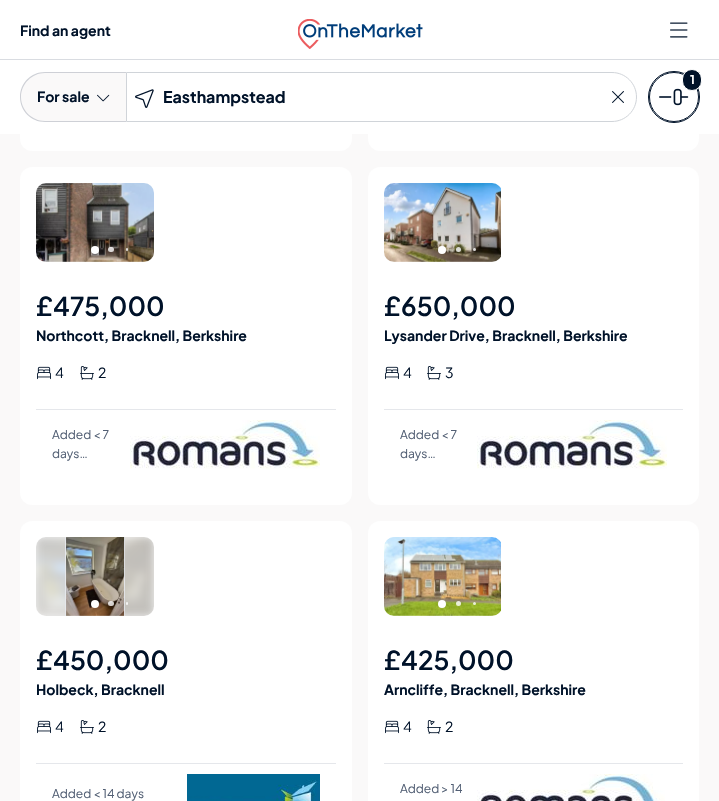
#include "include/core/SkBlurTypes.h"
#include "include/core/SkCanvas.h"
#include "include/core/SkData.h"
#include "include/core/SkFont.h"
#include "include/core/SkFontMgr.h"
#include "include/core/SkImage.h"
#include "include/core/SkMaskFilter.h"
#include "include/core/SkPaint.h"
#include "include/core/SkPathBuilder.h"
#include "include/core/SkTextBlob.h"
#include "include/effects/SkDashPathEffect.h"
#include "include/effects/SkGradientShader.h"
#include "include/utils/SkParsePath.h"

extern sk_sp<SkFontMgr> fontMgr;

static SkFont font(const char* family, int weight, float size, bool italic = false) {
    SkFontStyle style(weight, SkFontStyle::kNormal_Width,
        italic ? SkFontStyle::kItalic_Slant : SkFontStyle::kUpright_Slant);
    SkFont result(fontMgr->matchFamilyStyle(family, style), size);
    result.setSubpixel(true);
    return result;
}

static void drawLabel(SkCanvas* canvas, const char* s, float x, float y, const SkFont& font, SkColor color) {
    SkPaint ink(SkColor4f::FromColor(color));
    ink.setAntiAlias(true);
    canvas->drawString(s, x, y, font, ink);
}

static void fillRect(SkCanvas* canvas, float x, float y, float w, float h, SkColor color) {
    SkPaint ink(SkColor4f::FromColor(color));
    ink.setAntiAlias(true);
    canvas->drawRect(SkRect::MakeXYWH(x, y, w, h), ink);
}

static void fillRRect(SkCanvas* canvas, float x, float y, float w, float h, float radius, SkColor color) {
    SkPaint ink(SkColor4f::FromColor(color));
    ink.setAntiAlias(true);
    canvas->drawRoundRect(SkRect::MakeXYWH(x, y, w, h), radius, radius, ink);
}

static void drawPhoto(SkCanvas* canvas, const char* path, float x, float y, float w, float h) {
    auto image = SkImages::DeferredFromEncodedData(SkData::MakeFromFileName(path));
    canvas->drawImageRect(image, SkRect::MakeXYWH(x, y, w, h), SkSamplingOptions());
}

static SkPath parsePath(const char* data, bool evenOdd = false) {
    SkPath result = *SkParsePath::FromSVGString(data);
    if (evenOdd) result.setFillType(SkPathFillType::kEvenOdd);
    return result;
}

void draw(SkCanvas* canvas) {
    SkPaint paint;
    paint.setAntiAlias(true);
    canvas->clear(0xFFFAF9F9);
    fillRRect(canvas, 20, -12, 332, 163, 12, 0xFFFFFFFF);
    fillRRect(canvas, 368, -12, 331, 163, 12, 0xFFFFFFFF);
    fillRect(canvas, 0, 0, 719, 59, 0xFFFFFFFF);
    fillRect(canvas, 0, 59, 719, 1, 0xFFD9DCE1);
    SkFont font1 = font("Plus Jakarta Sans", 700, 14);
    drawLabel(canvas, "Find an agent", 20, 36, font1, 0xFF001229);
    drawPhoto(canvas, "assets/img1.png", 298, 19, 125, 30);
    drawPhoto(canvas, "assets/img2.png", 670, 22, 18, 16);
    fillRect(canvas, 0, 60, 719, 74, 0xFFFFFFFF);
    paint.setStroke(true);
    paint.setStrokeWidth(1);
    paint.setColor(0xFF001229);
    canvas->drawCircle(674, 97, 25.5f, paint);
    canvas->drawCircle(674, 97, 24.5f, paint);
    drawPhoto(canvas, "assets/img3.png", 659, 88, 30, 18);
    paint.setStroke(false);
    canvas->drawRoundRect(SkRect::MakeXYWH(682.5f, 69.5f, 19, 21), 9.5f, 9.5f, paint);
    paint.setStroke(true);
    paint.setColor(0xFFFFFFFF);
    canvas->drawRoundRect(SkRect::MakeXYWH(682.5f, 69.5f, 19, 21), 9.5f, 9.5f, paint);
    SkFont font2 = font("Plus Jakarta Sans", 700, 12);
    drawLabel(canvas, "1", 690, 84, font2, 0xFFFFFFFF);
    paint.setStroke(false);
    paint.setColor(0xFFFAF9F9);
    canvas->drawPath(parsePath("M45 72H126V122H45C31 122 20 111 20 97C20 83 31 72 45 72Z"), paint);
    paint.setColor(0x80A1A8B3);
    canvas->drawPath(parsePath("M45 72H126V122H45C31 122 20 111 20 97C20 83 31 72 45 72ZM45 73H126V121H45C32 121 21 110 21 97C21 84 32 73 45 73Z", true), paint);
    drawLabel(canvas, "For sale", 37, 102, font1, 0xFF001229);
    drawPhoto(canvas, "assets/img4.png", 97, 94, 13, 8);
    paint.setStroke(true);
    paint.setColor(0xFFD0D4D9);
    canvas->drawPath(parsePath("M126.5 72.5H612C625.5 72.5 636.5 83.5 636.5 97C636.5 110.5 625.5 121.5 612 121.5H126.5Z"), paint);
    drawPhoto(canvas, "assets/img5.png", 135, 89, 19, 19);
    SkFont font3 = font("Plus Jakarta Sans", 700, 16);
    drawLabel(canvas, "Easthampstead", 163, 103, font3, 0xFF001229);
    drawPhoto(canvas, "assets/img6.png", 612, 91, 12, 12);
    fillRRect(canvas, 20, 167, 332, 338, 12, 0xFFFFFFFF);
    drawPhoto(canvas, "assets/img7.png", 36, 183, 118, 79);
    paint.setStroke(false);
    paint.setColor(0xFFFFFFFF);
    canvas->drawCircle(95, 250, 4, paint);
    fillRRect(canvas, 108, 247, 6, 5, 2.5f, 0xCCFFFFFF);
    fillRRect(canvas, 126, 248, 2, 3, 1, 0xCCFFFFFF);
    SkFont font4 = font("Plus Jakarta Sans", 600, 26);
    drawLabel(canvas, "£475,000", 36, 316, font4, 0xFF001229);
    drawLabel(canvas, "Northcott, Bracknell, Berkshire", 36, 341, font1, 0xFF001229);
    drawPhoto(canvas, "assets/img8.png", 37, 366, 14, 14);
    SkFont font5 = font("Plus Jakarta Sans", 400, 14);
    drawLabel(canvas, "4", 55, 378, font5, 0xFF001229);
    drawPhoto(canvas, "assets/img9.png", 80, 366, 14, 14);
    drawLabel(canvas, "2", 98, 378, font5, 0xFF001229);
    fillRect(canvas, 36, 409, 300, 1, 0xFFE5E7EB);
    SkFont font6 = font("Plus Jakarta Sans", 400, 12);
    drawLabel(canvas, "Added < 7", 52, 439, font6, 0xFF525F74);
    drawLabel(canvas, "days…", 52, 458, font6, 0xFF525F74);
    drawPhoto(canvas, "assets/img10.png", 130, 420, 190, 49);
    fillRRect(canvas, 368, 167, 331, 338, 12, 0xFFFFFFFF);
    drawPhoto(canvas, "assets/img11.png", 384, 183, 117, 79);
    canvas->drawCircle(442, 250, 4, paint);
    paint.setColor(0xCCFFFFFF);
    canvas->drawCircle(458.5f, 249.5f, 2.5f, paint);
    canvas->drawCircle(474.5f, 249.5f, 1.5f, paint);
    drawLabel(canvas, "£650,000", 384, 316, font4, 0xFF001229);
    drawLabel(canvas, "Lysander Drive, Bracknell, Berkshire", 384, 341, font1, 0xFF001229);
    drawPhoto(canvas, "assets/img8.png", 385, 366, 14, 14);
    drawLabel(canvas, "4", 403, 378, font5, 0xFF001229);
    drawPhoto(canvas, "assets/img9.png", 427, 366, 14, 14);
    drawLabel(canvas, "3", 445, 378, font5, 0xFF001229);
    fillRect(canvas, 384, 409, 299, 1, 0xFFE5E7EB);
    drawLabel(canvas, "Added < 7", 400, 439, font6, 0xFF525F74);
    drawLabel(canvas, "days…", 400, 458, font6, 0xFF525F74);
    drawPhoto(canvas, "assets/img10.png", 477, 420, 190, 49);
    fillRRect(canvas, 20, 521, 332, 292, 12, 0xFFFFFFFF);
    fillRRect(canvas, 36, 537, 118, 79, 10, 0xFFF5F5F5);
    drawPhoto(canvas, "assets/img12.png", 36, 537, 118, 79);
    fillRect(canvas, 124, 537, 1, 79, 0xFFE5E7EB);
    fillRect(canvas, 65, 537, 1, 79, 0xFFE5E7EB);
    drawPhoto(canvas, "assets/img13.png", 66, 537, 59, 79);
    paint.setColor(0xFFFFFFFF);
    canvas->drawCircle(95, 604, 4, paint);
    fillRRect(canvas, 108, 601, 6, 5, 2.5f, 0xCCFFFFFF);
    fillRRect(canvas, 126, 602, 2, 3, 1, 0xCCFFFFFF);
    drawLabel(canvas, "£450,000", 36, 670, font4, 0xFF001229);
    drawLabel(canvas, "Holbeck, Bracknell", 36, 695, font1, 0xFF001229);
    drawPhoto(canvas, "assets/img8.png", 37, 720, 14, 14);
    drawLabel(canvas, "4", 55, 732, font5, 0xFF001229);
    drawPhoto(canvas, "assets/img9.png", 80, 720, 14, 14);
    drawLabel(canvas, "2", 98, 732, font5, 0xFF001229);
    fillRect(canvas, 36, 763, 300, 1, 0xFFE5E7EB);
    drawLabel(canvas, "Added < 14 days", 52, 798, font6, 0xFF525F74);
    drawPhoto(canvas, "assets/img14.png", 187, 774, 133, 27);
    fillRRect(canvas, 368, 521, 331, 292, 12, 0xFFFFFFFF);
    drawPhoto(canvas, "assets/img15.png", 384, 537, 117, 79);
    canvas->drawCircle(442, 604, 4, paint);
    paint.setColor(0xCCFFFFFF);
    canvas->drawCircle(458.5f, 603.5f, 2.5f, paint);
    canvas->drawCircle(474.5f, 603.5f, 1.5f, paint);
    drawLabel(canvas, "£425,000", 384, 670, font4, 0xFF001229);
    drawLabel(canvas, "Arncliffe, Bracknell, Berkshire", 384, 695, font1, 0xFF001229);
    drawPhoto(canvas, "assets/img8.png", 385, 720, 14, 14);
    drawLabel(canvas, "4", 403, 732, font5, 0xFF001229);
    drawPhoto(canvas, "assets/img9.png", 427, 720, 14, 14);
    drawLabel(canvas, "2", 445, 732, font5, 0xFF001229);
    fillRect(canvas, 384, 763, 299, 1, 0xFFE5E7EB);
    drawLabel(canvas, "Added > 14", 400, 793, font6, 0xFF525F74);
    drawPhoto(canvas, "assets/img16.png", 477, 774, 188, 27);
}
